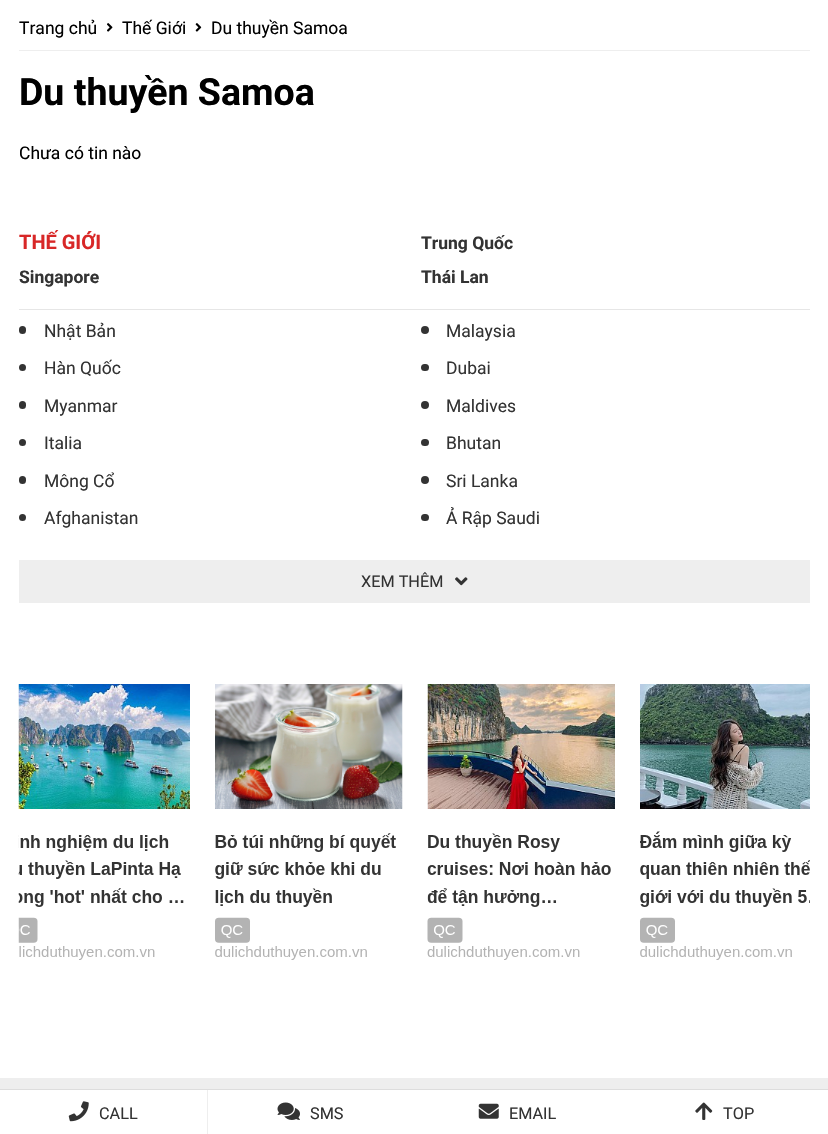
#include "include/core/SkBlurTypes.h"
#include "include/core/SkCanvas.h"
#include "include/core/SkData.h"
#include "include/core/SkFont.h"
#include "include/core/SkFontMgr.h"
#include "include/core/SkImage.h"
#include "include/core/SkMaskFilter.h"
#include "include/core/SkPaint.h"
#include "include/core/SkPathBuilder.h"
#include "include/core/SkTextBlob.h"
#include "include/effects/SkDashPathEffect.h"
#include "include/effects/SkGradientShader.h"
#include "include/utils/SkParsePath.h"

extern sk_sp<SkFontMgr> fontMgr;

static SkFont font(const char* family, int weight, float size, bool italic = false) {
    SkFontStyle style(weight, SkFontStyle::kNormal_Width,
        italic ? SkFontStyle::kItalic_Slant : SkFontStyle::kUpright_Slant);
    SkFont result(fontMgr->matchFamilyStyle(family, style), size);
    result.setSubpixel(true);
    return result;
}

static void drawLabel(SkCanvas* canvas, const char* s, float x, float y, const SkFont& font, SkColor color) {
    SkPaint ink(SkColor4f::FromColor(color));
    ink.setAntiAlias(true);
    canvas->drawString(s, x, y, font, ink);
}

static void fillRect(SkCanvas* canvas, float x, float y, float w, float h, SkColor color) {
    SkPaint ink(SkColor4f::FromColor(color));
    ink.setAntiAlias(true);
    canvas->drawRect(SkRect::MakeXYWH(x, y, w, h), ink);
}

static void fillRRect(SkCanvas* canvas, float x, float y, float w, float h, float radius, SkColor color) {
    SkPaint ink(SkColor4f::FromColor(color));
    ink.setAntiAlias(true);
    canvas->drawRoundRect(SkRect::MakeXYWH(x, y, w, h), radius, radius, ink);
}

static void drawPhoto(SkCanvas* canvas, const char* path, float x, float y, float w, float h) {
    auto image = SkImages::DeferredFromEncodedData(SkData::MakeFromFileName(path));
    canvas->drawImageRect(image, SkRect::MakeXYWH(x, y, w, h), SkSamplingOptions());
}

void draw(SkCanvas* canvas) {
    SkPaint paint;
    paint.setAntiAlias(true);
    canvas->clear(0xFFFFFFFF);
    fillRect(canvas, 19, 50, 791, 1, 0xFFEEEEEE);
    SkFont font1 = font("Roboto", 400, 17.5f);
    drawLabel(canvas, "Trang chủ", 19, 34, font1, 0xFF000000);
    drawPhoto(canvas, "assets/img1.png", 107, 23, 6, 9);
    drawLabel(canvas, "Thế Giới", 122, 34, font1, 0xFF000000);
    drawPhoto(canvas, "assets/img2.png", 195, 23, 7, 9);
    drawLabel(canvas, "Du thuyền Samoa", 211, 34, font1, 0xFF000000);
    SkFont font2 = font("Roboto", 700, 37.5f);
    drawLabel(canvas, "Du thuyền Samoa", 19, 105, font2, 0xFF000000);
    drawLabel(canvas, "Chưa có tin nào", 19, 159, font1, 0xFF000000);
    fillRect(canvas, 19, 309, 791, 1, 0xFFE6E6E6);
    SkFont font3 = font("Roboto", 700, 20);
    drawLabel(canvas, "THẾ GIỚI", 19, 249, font3, 0xFFD82727);
    SkFont font4 = font("Roboto", 700, 17.5f);
    drawLabel(canvas, "Trung Quốc", 421, 249, font4, 0xFF333333);
    drawLabel(canvas, "Singapore", 19, 283, font4, 0xFF333333);
    drawLabel(canvas, "Thái Lan", 421, 283, font4, 0xFF333333);
    fillRRect(canvas, 19, 326, 7, 8, 3.5f, 0xFF333333);
    drawLabel(canvas, "Nhật Bản", 44, 337, font1, 0xFF333333);
    paint.setColor(0xFF333333);
    canvas->drawCircle(425, 330, 4, paint);
    drawLabel(canvas, "Malaysia", 446, 337, font1, 0xFF333333);
    canvas->drawCircle(22.5f, 367.5f, 3.5f, paint);
    drawLabel(canvas, "Hàn Quốc", 44, 374, font1, 0xFF333333);
    fillRRect(canvas, 421, 364, 8, 7, 3.5f, 0xFF333333);
    drawLabel(canvas, "Dubai", 446, 374, font1, 0xFF333333);
    fillRRect(canvas, 19, 401, 7, 8, 3.5f, 0xFF333333);
    drawLabel(canvas, "Myanmar", 44, 412, font1, 0xFF333333);
    canvas->drawCircle(425, 405, 4, paint);
    drawLabel(canvas, "Maldives", 446, 412, font1, 0xFF333333);
    canvas->drawCircle(22.5f, 442.5f, 3.5f, paint);
    drawLabel(canvas, "Italia", 44, 449, font1, 0xFF333333);
    fillRRect(canvas, 421, 439, 8, 7, 3.5f, 0xFF333333);
    drawLabel(canvas, "Bhutan", 446, 449, font1, 0xFF333333);
    fillRRect(canvas, 19, 476, 7, 8, 3.5f, 0xFF333333);
    drawLabel(canvas, "Mông Cổ", 44, 487, font1, 0xFF333333);
    canvas->drawCircle(425, 480, 4, paint);
    drawLabel(canvas, "Sri Lanka", 446, 487, font1, 0xFF333333);
    canvas->drawCircle(22.5f, 517.5f, 3.5f, paint);
    drawLabel(canvas, "Afghanistan", 44, 524, font1, 0xFF333333);
    fillRRect(canvas, 421, 514, 8, 7, 3.5f, 0xFF333333);
    drawLabel(canvas, "Ả Rập Saudi", 446, 524, font1, 0xFF333333);
    fillRect(canvas, 19, 560, 791, 43, 0xFFEEEEEE);
    SkFont font5 = font("Roboto", 400, 16.25f);
    drawLabel(canvas, "XEM THÊM", 361, 587, font5, 0xFF333333);
    drawPhoto(canvas, "assets/img3.png", 455, 577, 13, 9);
    drawPhoto(canvas, "assets/img4.png", 18, 684, 792, 276);
    fillRect(canvas, 0, 1078, 828, 56, 0xFFEEEEEE);
    fillRect(canvas, 0, 1089, 828, 1, 0xFFDDDDDD);
    fillRect(canvas, 0, 1090, 207, 44, 0xFFFFFFFF);
    drawPhoto(canvas, "assets/img5.png", 68, 1101, 21, 21);
    drawLabel(canvas, "CALL", 99, 1119, font5, 0xFF333333);
    fillRect(canvas, 208, 1090, 207, 44, 0xFFFFFFFF);
    drawPhoto(canvas, "assets/img6.png", 277, 1102, 23, 18);
    drawLabel(canvas, "SMS", 310, 1119, font5, 0xFF333333);
    fillRect(canvas, 415, 1090, 413, 44, 0xFFFFFFFF);
    drawPhoto(canvas, "assets/img7.png", 478, 1103, 21, 16);
    drawLabel(canvas, "EMAIL", 509, 1119, font5, 0xFF333333);
    drawPhoto(canvas, "assets/img8.png", 695, 1102, 18, 18);
    drawLabel(canvas, "TOP", 723, 1119, font5, 0xFF333333);
}
